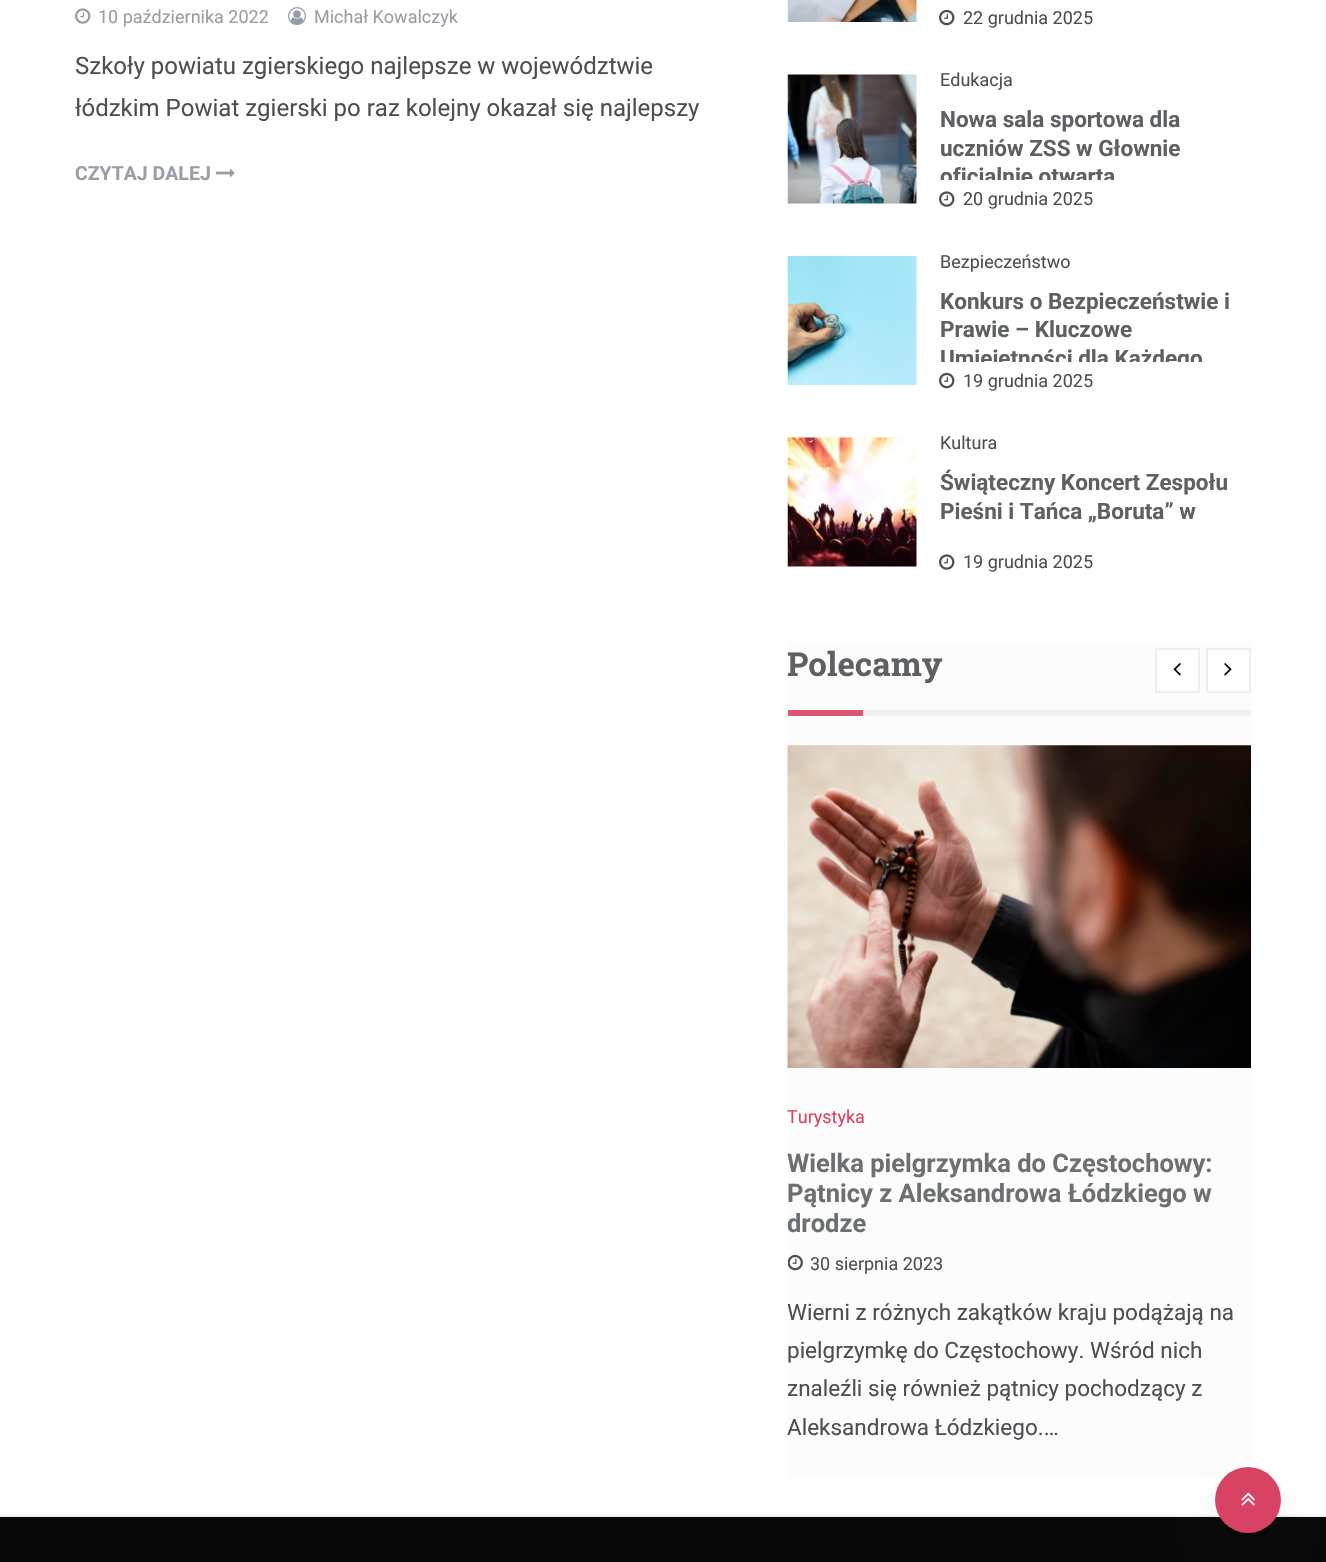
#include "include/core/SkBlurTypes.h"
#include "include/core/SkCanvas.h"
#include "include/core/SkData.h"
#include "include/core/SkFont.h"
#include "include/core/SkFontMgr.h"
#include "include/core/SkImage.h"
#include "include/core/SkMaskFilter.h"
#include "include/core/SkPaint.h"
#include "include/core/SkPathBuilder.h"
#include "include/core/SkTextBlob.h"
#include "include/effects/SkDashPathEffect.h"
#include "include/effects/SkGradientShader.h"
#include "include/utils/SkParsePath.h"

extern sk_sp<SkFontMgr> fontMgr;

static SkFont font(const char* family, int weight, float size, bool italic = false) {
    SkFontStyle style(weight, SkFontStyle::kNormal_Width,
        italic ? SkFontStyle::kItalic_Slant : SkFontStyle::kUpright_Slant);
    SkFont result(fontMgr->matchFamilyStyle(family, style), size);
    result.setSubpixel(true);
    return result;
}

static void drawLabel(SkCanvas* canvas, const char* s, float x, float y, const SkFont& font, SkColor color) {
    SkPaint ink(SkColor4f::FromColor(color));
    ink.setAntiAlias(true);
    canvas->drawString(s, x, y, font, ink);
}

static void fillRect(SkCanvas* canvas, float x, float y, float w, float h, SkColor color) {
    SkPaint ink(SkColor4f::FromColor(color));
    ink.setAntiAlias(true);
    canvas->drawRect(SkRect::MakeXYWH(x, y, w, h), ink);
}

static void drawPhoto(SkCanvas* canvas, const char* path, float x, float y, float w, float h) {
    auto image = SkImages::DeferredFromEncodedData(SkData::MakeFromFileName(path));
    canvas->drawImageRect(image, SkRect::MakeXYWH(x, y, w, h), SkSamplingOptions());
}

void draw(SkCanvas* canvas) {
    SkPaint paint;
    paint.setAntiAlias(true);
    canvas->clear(0xFFFFFFFF);
    drawPhoto(canvas, "assets/img1.png", 75, 8, 16, 16);
    SkFont font1 = font("Roboto", 400, 18);
    drawLabel(canvas, "10 października 2022", 98, 23, font1, 0xFF989EA6);
    drawPhoto(canvas, "assets/img2.png", 288, 7, 18, 18);
    drawLabel(canvas, "Michał Kowalczyk", 314, 23, font1, 0xFF989EA6);
    SkFont font2 = font("Roboto", 400, 24);
    drawLabel(canvas, "Szkoły powiatu zgierskiego najlepsze w województwie", 75, 74, font2, 0xFF4C4F53);
    drawLabel(canvas, "łódzkim Powiat zgierski po raz kolejny okazał się najlepszy", 75, 116, font2, 0xFF4C4F53);
    SkFont font3 = font("Roboto", 700, 19.5f);
    drawLabel(canvas, "CZYTAJ DALEJ", 75, 180, font3, 0xFF989EA6);
    drawPhoto(canvas, "assets/img3.png", 216, 169, 19, 9);
    drawPhoto(canvas, "assets/img4.png", 787, 0, 130, 22);
    drawPhoto(canvas, "assets/img5.png", 939, 9, 16, 17);
    drawLabel(canvas, "22 grudnia 2025", 963, 24, font1, 0xFF4C4F53);
    drawPhoto(canvas, "assets/img6.png", 787, 74, 130, 130);
    drawLabel(canvas, "Edukacja", 940, 86, font1, 0xFF4C4F53);
    SkFont font4 = font("Roboto", 700, 22.5f);
    drawLabel(canvas, "Nowa sala sportowa dla", 940, 127, font4, 0xFF5E6164);
    drawLabel(canvas, "uczniów ZSS w Głownie", 940, 156, font4, 0xFF5E6164);
    canvas->save();
    canvas->clipRect(SkRect::MakeXYWH(939, 105, 300, 75));
    drawLabel(canvas, "oficjalnie otwarta", 940, 184, font4, 0xFF5E6164);
    canvas->restore();
    drawPhoto(canvas, "assets/img7.png", 939, 191, 16, 16);
    drawLabel(canvas, "20 grudnia 2025", 963, 205, font1, 0xFF4C4F53);
    drawPhoto(canvas, "assets/img8.png", 787, 256, 130, 129);
    drawLabel(canvas, "Bezpieczeństwo", 940, 268, font1, 0xFF4C4F53);
    drawLabel(canvas, "Konkurs o Bezpieczeństwie i", 940, 309, font4, 0xFF5E6164);
    drawLabel(canvas, "Prawie – Kluczowe", 940, 337, font4, 0xFF5E6164);
    canvas->save();
    canvas->clipRect(SkRect::MakeXYWH(939, 287, 300, 75));
    drawLabel(canvas, "Umiejętności dla Każdego", 940, 366, font4, 0xFF5E6164);
    canvas->restore();
    drawPhoto(canvas, "assets/img5.png", 939, 372, 16, 17);
    drawLabel(canvas, "19 grudnia 2025", 963, 387, font1, 0xFF4C4F53);
    drawPhoto(canvas, "assets/img9.png", 787, 437, 130, 130);
    drawLabel(canvas, "Kultura", 940, 449, font1, 0xFF4C4F53);
    drawLabel(canvas, "Świąteczny Koncert Zespołu", 940, 490, font4, 0xFF5E6164);
    drawLabel(canvas, "Pieśni i Tańca „Boruta” w", 940, 519, font4, 0xFF5E6164);
    drawPhoto(canvas, "assets/img7.png", 939, 554, 16, 16);
    drawLabel(canvas, "19 grudnia 2025", 963, 568, font1, 0xFF4C4F53);
    fillRect(canvas, 788, 642, 463, 836, 0xFFFCFCFC);
    SkFont font5 = font("Roboto Slab", 700, 33);
    drawLabel(canvas, "Polecamy", 787, 676, font5, 0xFF5E6164);
    fillRect(canvas, 788, 710, 75, 6, 0xFFDC5572);
    fillRect(canvas, 863, 710, 388, 6, 0xFFEFEFEF);
    paint.setColor(0xFFFFFFFF);
    canvas->drawRect(SkRect::MakeXYWH(1156, 649, 43, 43), paint);
    paint.setStroke(true);
    paint.setStrokeWidth(2);
    paint.setColor(0xFFEEEEEE);
    canvas->drawRect(SkRect::MakeXYWH(1156, 649, 43, 43), paint);
    drawPhoto(canvas, "assets/img10.png", 1173, 663, 8, 13);
    paint.setStroke(false);
    paint.setColor(0xFFFFFFFF);
    canvas->drawRect(SkRect::MakeXYWH(1207, 649, 43, 43), paint);
    paint.setStroke(true);
    paint.setColor(0xFFEEEEEE);
    canvas->drawRect(SkRect::MakeXYWH(1207, 649, 43, 43), paint);
    drawPhoto(canvas, "assets/img11.png", 1224, 663, 8, 13);
    drawPhoto(canvas, "assets/img12.png", 787, 745, 464, 323);
    drawLabel(canvas, "Turystyka", 787, 1123, font1, 0xFFD84263);
    SkFont font6 = font("Roboto", 700, 25.5f);
    drawLabel(canvas, "Wielka pielgrzymka do Częstochowy:", 787, 1172, font6, 0xFF6D7073);
    drawLabel(canvas, "Pątnicy z Aleksandrowa Łódzkiego w", 787, 1202, font6, 0xFF6D7073);
    drawLabel(canvas, "drodze", 787, 1232, font6, 0xFF6D7073);
    drawPhoto(canvas, "assets/img13.png", 788, 1254, 15, 17);
    drawLabel(canvas, "30 sierpnia 2023", 810, 1270, font1, 0xFF4C4F53);
    SkFont font7 = font("Roboto", 400, 22.5f);
    drawLabel(canvas, "Wierni z różnych zakątków kraju podążają na", 787, 1320, font7, 0xFF4C4F53);
    drawLabel(canvas, "pielgrzymkę do Częstochowy. Wśród nich", 787, 1358, font7, 0xFF4C4F53);
    drawLabel(canvas, "znaleźli się również pątnicy pochodzący z", 787, 1396, font7, 0xFF4C4F53);
    drawLabel(canvas, "Aleksandrowa Łódzkiego.…", 787, 1435, font7, 0xFF4C4F53);
    fillRect(canvas, 0, 1515, 1326, 2, 0xFFF1F1F1);
    fillRect(canvas, 0, 1517, 1326, 45, 0xFF080808);
    paint.setStroke(false);
    paint.setColor(0x260E1114);
    paint.setMaskFilter(SkMaskFilter::MakeBlur(kNormal_SkBlurStyle, 21));
    canvas->drawRoundRect(SkRect::MakeXYWH(1221, 1494, 54, 54), 27, 27, paint);
    paint.setMaskFilter(nullptr);
    paint.setColor(0xFFD84263);
    canvas->drawCircle(1248, 1500, 33, paint);
    drawPhoto(canvas, "assets/img14.png", 1241, 1492, 14, 14);
}
